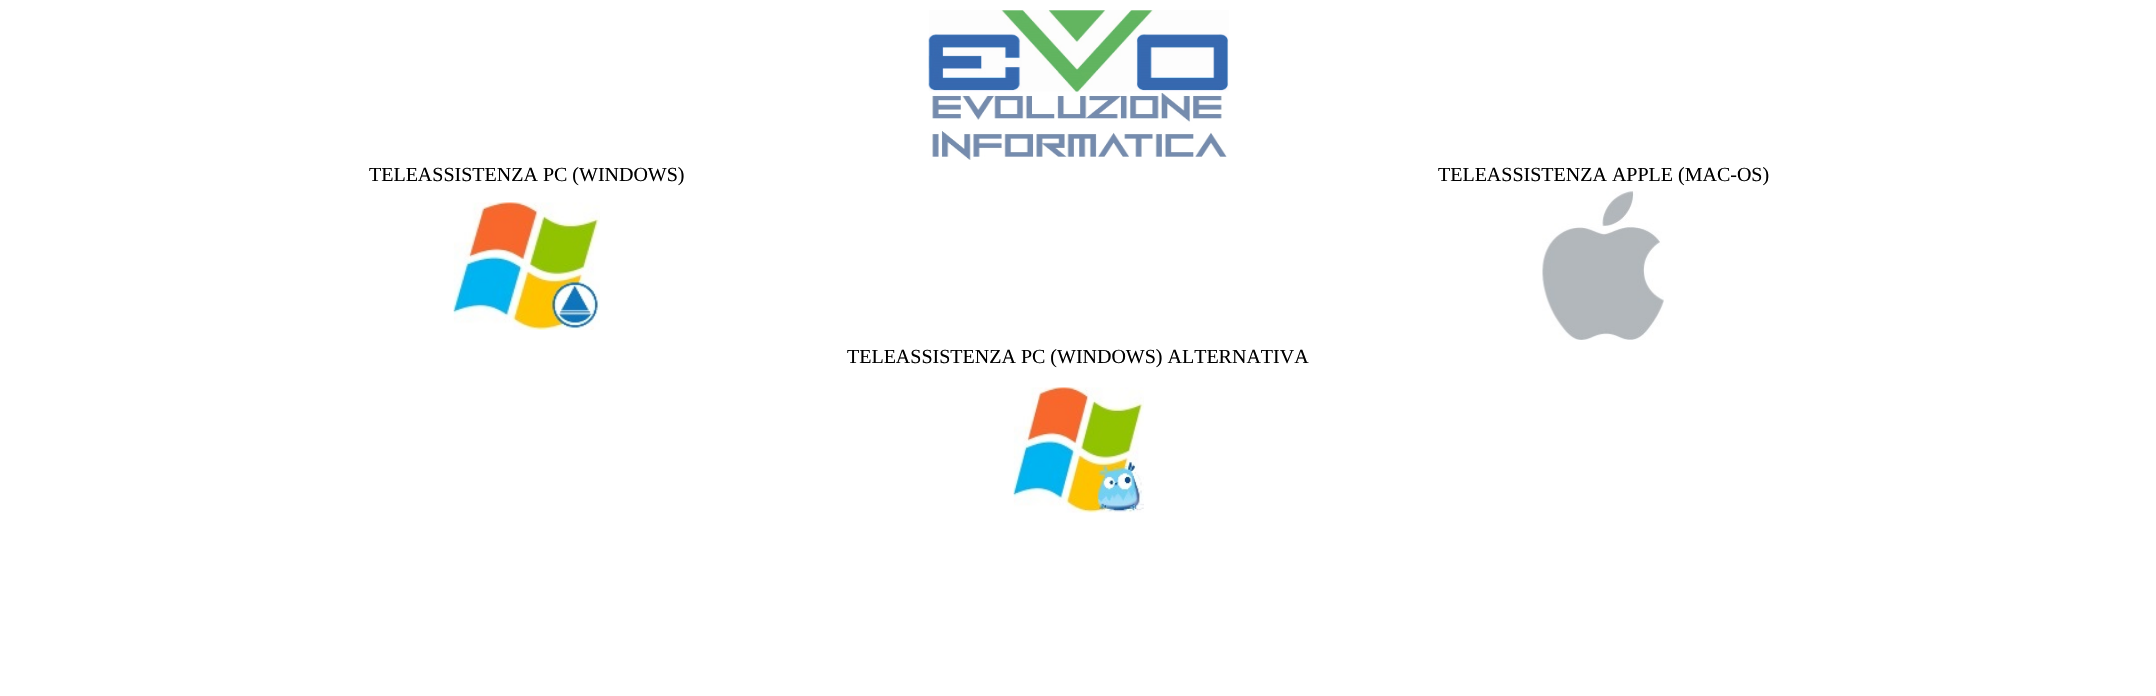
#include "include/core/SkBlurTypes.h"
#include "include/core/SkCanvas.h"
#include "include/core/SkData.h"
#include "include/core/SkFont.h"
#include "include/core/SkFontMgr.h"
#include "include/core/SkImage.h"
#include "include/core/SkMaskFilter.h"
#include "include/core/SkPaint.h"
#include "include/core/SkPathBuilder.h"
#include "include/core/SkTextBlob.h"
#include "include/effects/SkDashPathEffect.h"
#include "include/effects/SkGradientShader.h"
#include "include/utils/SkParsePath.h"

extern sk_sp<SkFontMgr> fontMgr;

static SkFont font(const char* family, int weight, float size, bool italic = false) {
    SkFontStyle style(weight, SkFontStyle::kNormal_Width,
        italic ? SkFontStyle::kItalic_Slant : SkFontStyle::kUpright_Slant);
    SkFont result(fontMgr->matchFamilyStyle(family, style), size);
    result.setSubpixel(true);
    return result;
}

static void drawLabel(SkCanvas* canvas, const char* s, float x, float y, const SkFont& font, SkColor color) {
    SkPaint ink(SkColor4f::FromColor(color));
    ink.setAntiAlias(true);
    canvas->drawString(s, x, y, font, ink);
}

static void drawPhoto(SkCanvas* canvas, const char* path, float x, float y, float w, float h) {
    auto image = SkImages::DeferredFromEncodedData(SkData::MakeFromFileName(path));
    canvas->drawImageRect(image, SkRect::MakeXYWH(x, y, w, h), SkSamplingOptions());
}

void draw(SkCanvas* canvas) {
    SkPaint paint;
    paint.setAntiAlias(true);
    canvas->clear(0xFFFFFFFF);
    drawPhoto(canvas, "assets/img1.png", 928, 10, 301, 150);
    SkFont font1 = font("Liberation Serif", 400, 20);
    drawLabel(canvas, "TELEASSISTENZA PC (WINDOWS)", 369, 181, font1, 0xFF000000);
    drawLabel(canvas, "TELEASSISTENZA APPLE (MAC-OS)", 1438, 181, font1, 0xFF000000);
    drawPhoto(canvas, "assets/img2.png", 453, 202, 147, 128);
    drawPhoto(canvas, "assets/img3.png", 1542, 191, 122, 149);
    drawLabel(canvas, "TELEASSISTENZA PC (WINDOWS) ALTERNATIVA", 847, 363, font1, 0xFF000000);
    drawPhoto(canvas, "assets/img4.png", 1013, 387, 131, 126);
}
